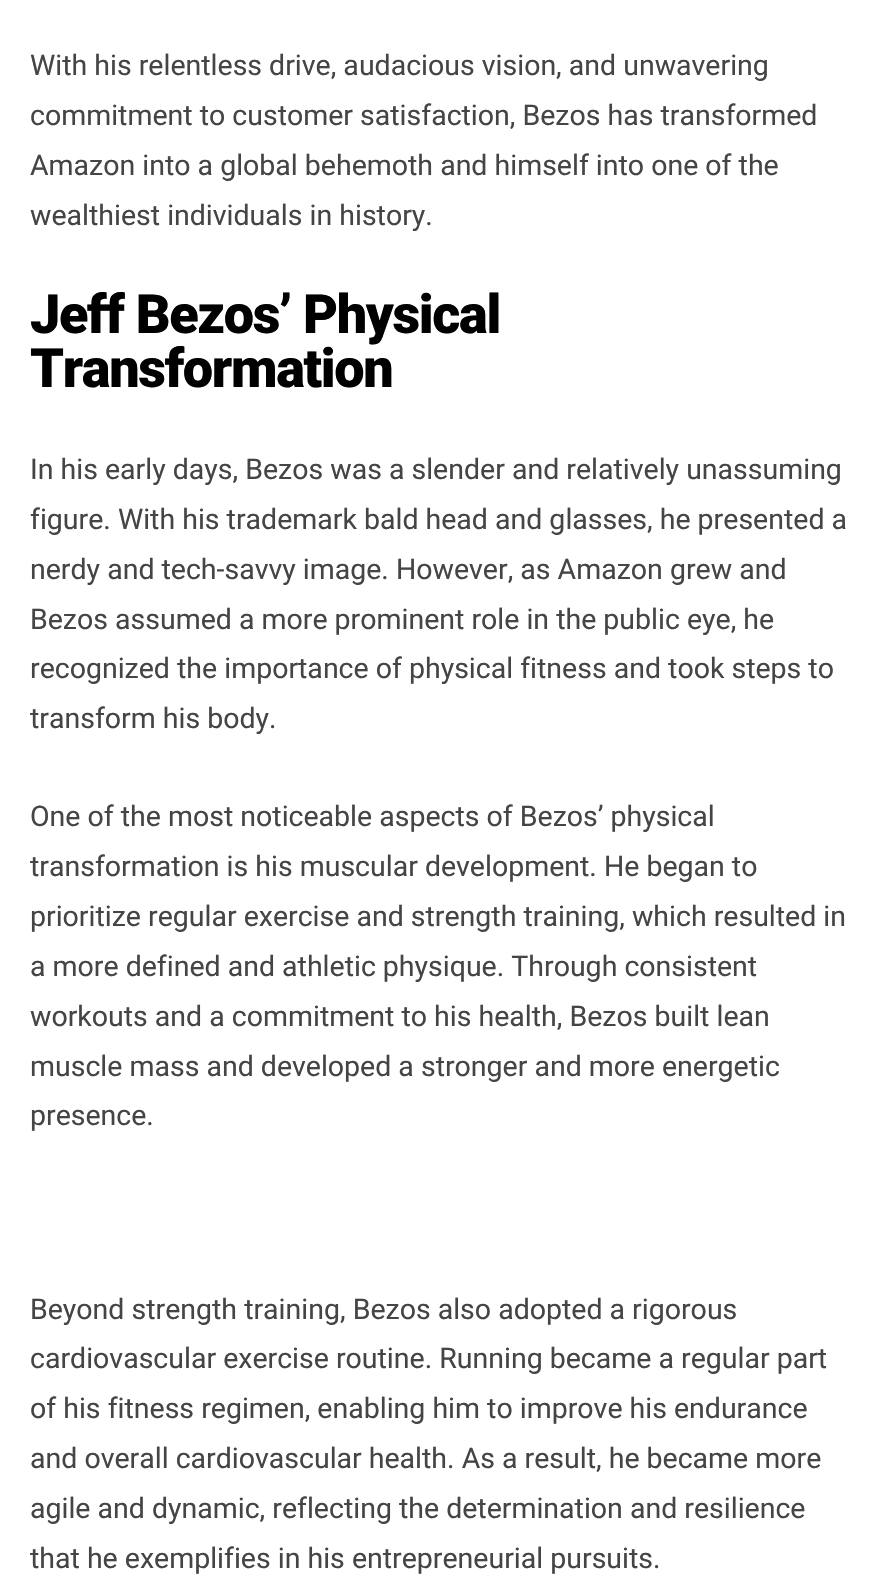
#include "include/core/SkBlurTypes.h"
#include "include/core/SkCanvas.h"
#include "include/core/SkData.h"
#include "include/core/SkFont.h"
#include "include/core/SkFontMgr.h"
#include "include/core/SkImage.h"
#include "include/core/SkMaskFilter.h"
#include "include/core/SkPaint.h"
#include "include/core/SkPathBuilder.h"
#include "include/core/SkTextBlob.h"
#include "include/effects/SkDashPathEffect.h"
#include "include/effects/SkGradientShader.h"
#include "include/utils/SkParsePath.h"

extern sk_sp<SkFontMgr> fontMgr;

static SkFont font(const char* family, int weight, float size, bool italic = false) {
    SkFontStyle style(weight, SkFontStyle::kNormal_Width,
        italic ? SkFontStyle::kItalic_Slant : SkFontStyle::kUpright_Slant);
    SkFont result(fontMgr->matchFamilyStyle(family, style), size);
    result.setSubpixel(true);
    return result;
}

static void drawLabel(SkCanvas* canvas, const char* s, float x, float y, const SkFont& font, SkColor color) {
    SkPaint ink(SkColor4f::FromColor(color));
    ink.setAntiAlias(true);
    canvas->drawString(s, x, y, font, ink);
}

static void drawTracked(SkCanvas* canvas, const char* s, float x, float y, const SkFont& font, const SkPaint& ink, float letter, float word) {
    std::vector<SkGlyphID> glyphs(font.countText(s, strlen(s), SkTextEncoding::kUTF8));
    std::vector<float> xs(glyphs.size());
    font.textToGlyphs(s, strlen(s), SkTextEncoding::kUTF8, glyphs);
    font.getXPos(glyphs, xs, x);
    float extra = 0;
    for (size_t i = 0; i < glyphs.size(); i++) {
        xs[i] += extra;
        extra += letter + word * (glyphs[i] == font.unicharToGlyph(' '));
    }
    canvas->drawTextBlob(SkTextBlob::MakeFromPosHGlyphs(glyphs, xs, y, font), 0, 0, ink);
}

void draw(SkCanvas* canvas) {
    SkPaint paint;
    paint.setAntiAlias(true);
    canvas->clear(0xFFFFFFFF);
    SkFont font1 = font("Roboto", 400, 28.5f);
    drawLabel(canvas, "With his relentless drive, audacious vision, and unwavering", 30, 75, font1, 0xFF454545);
    drawLabel(canvas, "commitment to customer satisfaction, Bezos has transformed", 30, 125, font1, 0xFF454545);
    drawLabel(canvas, "Amazon into a global behemoth and himself into one of the", 30, 175, font1, 0xFF454545);
    drawLabel(canvas, "wealthiest individuals in history.", 30, 225, font1, 0xFF454545);
    SkFont font2 = font("Roboto", 900, 54);
    paint.setColor(0xFF000000);
    drawTracked(canvas, "Jeff Bezos’ Physical", 30, 333, font2, paint, -1.35f, 0);
    drawTracked(canvas, "Transformation", 30, 387, font2, paint, -1.35f, 0);
    drawLabel(canvas, "In his early days, Bezos was a slender and relatively unassuming", 30, 479, font1, 0xFF454545);
    drawLabel(canvas, "figure. With his trademark bald head and glasses, he presented a", 30, 529, font1, 0xFF454545);
    drawLabel(canvas, "nerdy and tech-savvy image. However, as Amazon grew and", 30, 579, font1, 0xFF454545);
    drawLabel(canvas, "Bezos assumed a more prominent role in the public eye, he", 30, 629, font1, 0xFF454545);
    drawLabel(canvas, "recognized the importance of physical fitness and took steps to", 30, 678, font1, 0xFF454545);
    drawLabel(canvas, "transform his body.", 30, 728, font1, 0xFF454545);
    drawLabel(canvas, "One of the most noticeable aspects of Bezos’ physical", 30, 826, font1, 0xFF454545);
    drawLabel(canvas, "transformation is his muscular development. He began to", 30, 876, font1, 0xFF454545);
    drawLabel(canvas, "prioritize regular exercise and strength training, which resulted in", 30, 926, font1, 0xFF454545);
    drawLabel(canvas, "a more defined and athletic physique. Through consistent", 30, 976, font1, 0xFF454545);
    drawLabel(canvas, "workouts and a commitment to his health, Bezos built lean", 30, 1026, font1, 0xFF454545);
    drawLabel(canvas, "muscle mass and developed a stronger and more energetic", 30, 1076, font1, 0xFF454545);
    drawLabel(canvas, "presence.", 30, 1125, font1, 0xFF454545);
    drawLabel(canvas, "Beyond strength training, Bezos also adopted a rigorous", 30, 1319, font1, 0xFF454545);
    drawLabel(canvas, "cardiovascular exercise routine. Running became a regular part", 30, 1368, font1, 0xFF454545);
    drawLabel(canvas, "of his fitness regimen, enabling him to improve his endurance", 30, 1418, font1, 0xFF454545);
    drawLabel(canvas, "and overall cardiovascular health. As a result, he became more", 30, 1468, font1, 0xFF454545);
    drawLabel(canvas, "agile and dynamic, reflecting the determination and resilience", 30, 1518, font1, 0xFF454545);
    drawLabel(canvas, "that he exemplifies in his entrepreneurial pursuits.", 30, 1568, font1, 0xFF454545);
}
